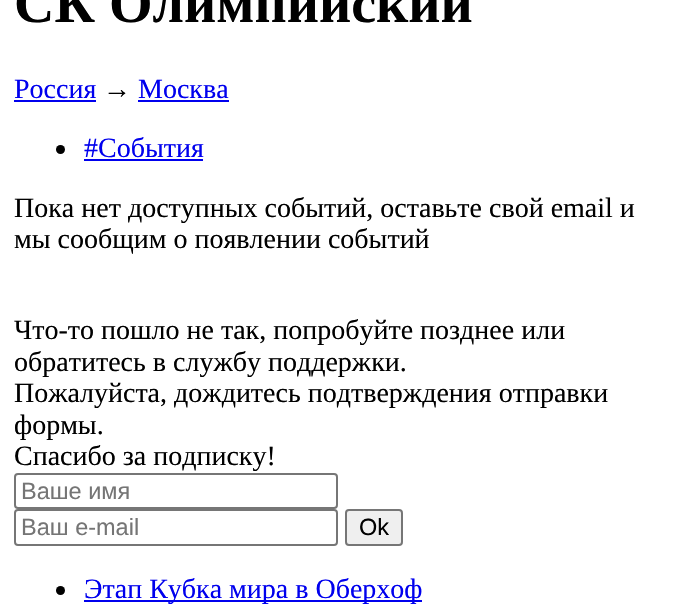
#include "include/core/SkBlurTypes.h"
#include "include/core/SkCanvas.h"
#include "include/core/SkData.h"
#include "include/core/SkFont.h"
#include "include/core/SkFontMgr.h"
#include "include/core/SkImage.h"
#include "include/core/SkMaskFilter.h"
#include "include/core/SkPaint.h"
#include "include/core/SkPathBuilder.h"
#include "include/core/SkTextBlob.h"
#include "include/effects/SkDashPathEffect.h"
#include "include/effects/SkGradientShader.h"
#include "include/utils/SkParsePath.h"

extern sk_sp<SkFontMgr> fontMgr;

static SkFont font(const char* family, int weight, float size, bool italic = false) {
    SkFontStyle style(weight, SkFontStyle::kNormal_Width,
        italic ? SkFontStyle::kItalic_Slant : SkFontStyle::kUpright_Slant);
    SkFont result(fontMgr->matchFamilyStyle(family, style), size);
    result.setSubpixel(true);
    return result;
}

static void drawLabel(SkCanvas* canvas, const char* s, float x, float y, const SkFont& font, SkColor color) {
    SkPaint ink(SkColor4f::FromColor(color));
    ink.setAntiAlias(true);
    canvas->drawString(s, x, y, font, ink);
}

static void fillRect(SkCanvas* canvas, float x, float y, float w, float h, SkColor color) {
    SkPaint ink(SkColor4f::FromColor(color));
    ink.setAntiAlias(true);
    canvas->drawRect(SkRect::MakeXYWH(x, y, w, h), ink);
}

void draw(SkCanvas* canvas) {
    SkPaint paint;
    paint.setAntiAlias(true);
    canvas->clear(0xFFFFFFFF);
    SkFont font1 = font("Liberation Serif", 700, 56);
    drawLabel(canvas, "СК Олимпийский", 14, 22, font1, 0xFF000000);
    SkFont font2 = font("Liberation Serif", 400, 28);
    drawLabel(canvas, "Россия", 14, 98, font2, 0xFF0000EE);
    fillRect(canvas, 14, 100, 82, 2, 0xFF0000EE);
    drawLabel(canvas, "→", 103, 98, font2, 0xFF000000);
    drawLabel(canvas, "Москва", 138, 98, font2, 0xFF0000EE);
    fillRect(canvas, 138, 100, 91, 2, 0xFF0000EE);
    paint.setColor(0xFF000000);
    canvas->drawCircle(60.5f, 149.5f, 4.5f, paint);
    drawLabel(canvas, "#События", 84, 157, font2, 0xFF0000EE);
    fillRect(canvas, 84, 159, 119, 2, 0xFF0000EE);
    drawLabel(canvas, "Пока нет доступных событий, оставьте свой email и", 14, 217, font2, 0xFF000000);
    drawLabel(canvas, "мы сообщим о появлении событий", 14, 248, font2, 0xFF000000);
    drawLabel(canvas, "Что-то пошло не так, попробуйте позднее или", 14, 339, font2, 0xFF000000);
    drawLabel(canvas, "обратитесь в службу поддержки.", 14, 371, font2, 0xFF000000);
    drawLabel(canvas, "Пожалуйста, дождитесь подтверждения отправки", 14, 402, font2, 0xFF000000);
    drawLabel(canvas, "формы.", 14, 434, font2, 0xFF000000);
    drawLabel(canvas, "Спасибо за подписку!", 14, 465, font2, 0xFF000000);
    paint.setStroke(true);
    paint.setStrokeWidth(2);
    paint.setColor(0xFF767676);
    canvas->drawRoundRect(SkRect::MakeXYWH(15, 474, 322, 34), 3, 3, paint);
    SkFont font3 = font("Liberation Sans", 400, 23.5f);
    drawLabel(canvas, "Ваше имя", 21, 499, font3, 0xFF757575);
    canvas->drawRoundRect(SkRect::MakeXYWH(15, 510, 322, 35), 3, 3, paint);
    drawLabel(canvas, "Ваш e-mail", 21, 535, font3, 0xFF757575);
    paint.setStroke(false);
    paint.setColor(0xFFEFEFEF);
    canvas->drawRoundRect(SkRect::MakeXYWH(346, 510, 56, 35), 3, 3, paint);
    paint.setStroke(true);
    paint.setColor(0xFF767676);
    canvas->drawRoundRect(SkRect::MakeXYWH(346, 510, 56, 35), 3, 3, paint);
    drawLabel(canvas, "Ok", 359, 535, font3, 0xFF000000);
    paint.setStroke(false);
    paint.setColor(0xFF000000);
    canvas->drawCircle(60.5f, 590.5f, 4.5f, paint);
    fillRect(canvas, 84, 600, 338, 2, 0xFF0000EE);
    drawLabel(canvas, "Этап Кубка мира в Оберхоф", 84, 598, font2, 0xFF0000EE);
}
